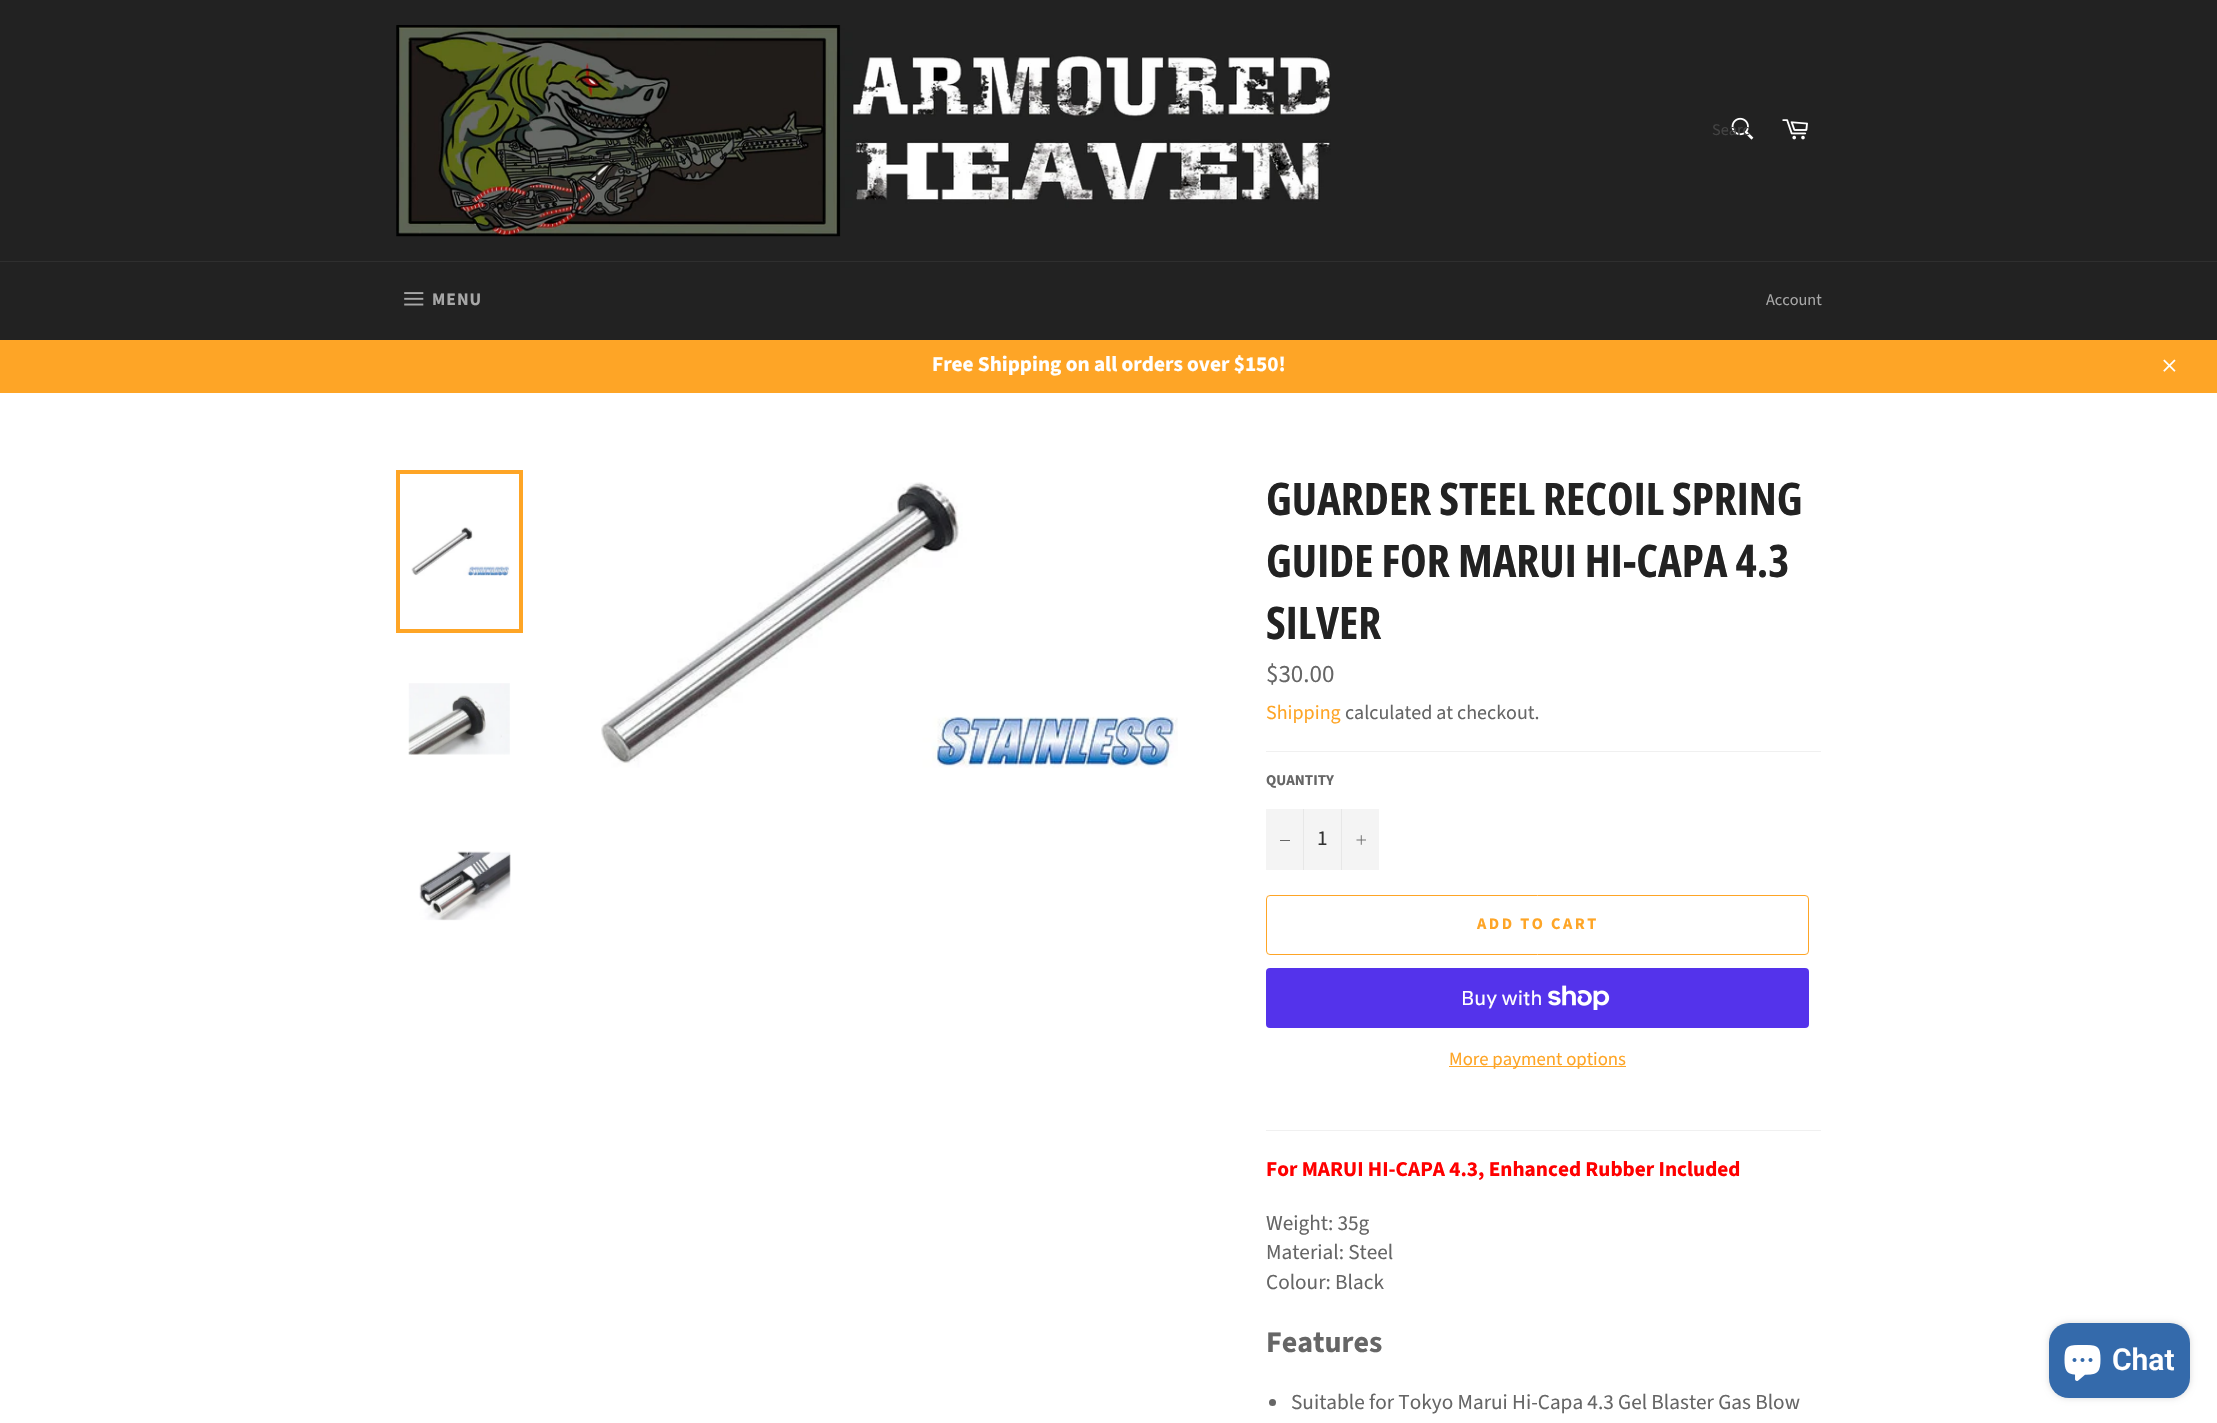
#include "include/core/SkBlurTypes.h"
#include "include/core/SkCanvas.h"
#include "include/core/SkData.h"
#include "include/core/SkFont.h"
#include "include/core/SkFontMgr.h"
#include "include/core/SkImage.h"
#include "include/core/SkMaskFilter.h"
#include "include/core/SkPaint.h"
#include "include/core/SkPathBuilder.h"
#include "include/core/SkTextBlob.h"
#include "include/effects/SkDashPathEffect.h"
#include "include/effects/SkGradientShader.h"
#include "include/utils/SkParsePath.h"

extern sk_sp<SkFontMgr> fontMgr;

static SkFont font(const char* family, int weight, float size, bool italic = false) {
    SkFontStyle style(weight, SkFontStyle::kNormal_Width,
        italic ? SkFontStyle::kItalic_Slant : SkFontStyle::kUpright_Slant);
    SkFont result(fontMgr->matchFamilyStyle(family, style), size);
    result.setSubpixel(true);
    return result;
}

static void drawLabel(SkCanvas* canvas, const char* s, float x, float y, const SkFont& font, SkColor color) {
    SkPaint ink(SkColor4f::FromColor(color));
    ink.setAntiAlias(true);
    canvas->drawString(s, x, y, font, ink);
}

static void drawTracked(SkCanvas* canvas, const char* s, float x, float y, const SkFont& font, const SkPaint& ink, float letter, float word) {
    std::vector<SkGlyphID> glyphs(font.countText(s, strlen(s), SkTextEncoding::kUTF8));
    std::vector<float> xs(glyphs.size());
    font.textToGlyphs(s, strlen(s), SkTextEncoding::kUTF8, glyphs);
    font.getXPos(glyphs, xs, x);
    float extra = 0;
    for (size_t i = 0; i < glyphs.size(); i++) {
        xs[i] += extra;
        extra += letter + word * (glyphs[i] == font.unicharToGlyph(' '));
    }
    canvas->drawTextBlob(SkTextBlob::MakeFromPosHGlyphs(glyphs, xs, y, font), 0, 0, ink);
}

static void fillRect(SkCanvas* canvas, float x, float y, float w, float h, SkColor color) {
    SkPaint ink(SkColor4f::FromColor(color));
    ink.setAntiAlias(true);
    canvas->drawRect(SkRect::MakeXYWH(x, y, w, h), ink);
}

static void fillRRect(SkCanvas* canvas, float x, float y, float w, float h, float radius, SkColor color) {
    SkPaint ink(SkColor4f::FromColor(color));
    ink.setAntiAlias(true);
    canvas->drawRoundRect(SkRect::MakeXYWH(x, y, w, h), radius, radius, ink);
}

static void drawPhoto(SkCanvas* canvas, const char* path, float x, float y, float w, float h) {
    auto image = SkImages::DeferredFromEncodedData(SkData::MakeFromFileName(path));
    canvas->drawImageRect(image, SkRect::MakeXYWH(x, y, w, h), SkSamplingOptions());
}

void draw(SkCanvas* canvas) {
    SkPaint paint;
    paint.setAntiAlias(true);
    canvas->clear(0xFF222222);
    drawPhoto(canvas, "assets/img1.png", 396, 25, 935, 212);
    drawPhoto(canvas, "assets/img2.png", 1731, 117, 23, 23);
    SkFont font1 = font("Source Sans Pro", 400, 16.25f);
    drawLabel(canvas, "Searc", 1712, 135, font1, 0xFF434343);
    drawPhoto(canvas, "assets/img3.png", 1782, 119, 26, 21);
    fillRect(canvas, 0, 261, 2217, 1, 0xFF2F2F2F);
    drawPhoto(canvas, "assets/img4.png", 404, 292, 20, 14);
    SkFont font2 = font("Source Sans Pro", 700, 17.5f);
    paint.setColor(0xFFA7A7A7);
    drawTracked(canvas, "MENU", 432, 305, font2, paint, 1, 0);
    drawLabel(canvas, "Account", 1766, 305, font1, 0xFFA7A7A7);
    fillRect(canvas, 0, 340, 2217, 53, 0xFFFEA526);
    SkFont font3 = font("Source Sans Pro", 700, 21.25f);
    drawLabel(canvas, "Free Shipping on all orders over $150!", 932, 371, font3, 0xFFFFFFFF);
    drawPhoto(canvas, "assets/img5.png", 2163, 359, 13, 13);
    fillRect(canvas, 0, 393, 2217, 1030, 0xFFFFFFFF);
    drawPhoto(canvas, "assets/img6.png", 411, 527, 99, 49);
    paint.setStroke(true);
    paint.setStrokeWidth(4);
    paint.setColor(0xFFFEA526);
    canvas->drawRect(SkRect::MakeXYWH(398, 472, 123, 159), paint);
    drawPhoto(canvas, "assets/img7.png", 408, 683, 102, 72);
    drawPhoto(canvas, "assets/img8.png", 419, 851, 92, 70);
    drawPhoto(canvas, "assets/img9.png", 601, 482, 577, 286);
    SkFont font4 = font("Open Sans Condensed", 700, 45);
    drawLabel(canvas, "GUARDER STEEL RECOIL SPRING", 1266, 515, font4, 0xFF222222);
    drawLabel(canvas, "GUIDE FOR MARUI HI-CAPA 4.3", 1266, 577, font4, 0xFF222222);
    drawLabel(canvas, "SILVER", 1266, 639, font4, 0xFF222222);
    SkFont font5 = font("Source Sans Pro", 400, 25);
    drawLabel(canvas, "$30.00", 1266, 682, font5, 0xFF666666);
    SkFont font6 = font("Source Sans Pro", 400, 20);
    drawLabel(canvas, "Shipping", 1266, 719, font6, 0xFFFEA526);
    drawLabel(canvas, "calculated at checkout.", 1345, 719, font6, 0xFF666666);
    fillRect(canvas, 1266, 751, 555, 1, 0xFFF0F0F0);
    SkFont font7 = font("Source Sans Pro", 700, 15);
    drawLabel(canvas, "QUANTITY", 1266, 785, font7, 0xFF666666);
    fillRect(canvas, 1266, 809, 113, 61, 0xFFF4F4F4);
    fillRect(canvas, 1303, 809, 1, 61, 0xFFE7E7E7);
    fillRect(canvas, 1280, 840, 10, 1, 0xFF666666);
    SkFont font8 = font("Source Sans Pro", 400, 21.25f);
    drawLabel(canvas, "1", 1317, 845, font8, 0xFF333333);
    fillRect(canvas, 1341, 809, 1, 61, 0xFFE7E7E7);
    drawPhoto(canvas, "assets/img10.png", 1356, 835, 10, 10);
    paint.setStrokeWidth(1);
    canvas->drawRoundRect(SkRect::MakeXYWH(1266.5f, 895.5f, 542, 59), 3.5f, 3.5f, paint);
    SkFont font9 = font("Source Sans Pro", 700, 16.25f);
    paint.setStroke(false);
    drawTracked(canvas, "ADD TO CART", 1477, 929, font9, paint, 2.5f, 0);
    fillRRect(canvas, 1266, 968, 543, 60, 4, 0xFF5433EB);
    SkFont font10 = font("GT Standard", 400, 20);
    drawLabel(canvas, "Buy with", 1461, 1005, font10, 0xFFFFFFFF);
    drawPhoto(canvas, "assets/img11.png", 1548, 985, 62, 25);
    fillRect(canvas, 1449, 1066, 177, 1, 0xFFFEA526);
    SkFont font11 = font("Source Sans Pro", 400, 18.75f);
    drawLabel(canvas, "More payment options", 1449, 1065, font11, 0xFFFEA526);
    fillRect(canvas, 1266, 1130, 555, 1, 0xFFF0F0F0);
    drawLabel(canvas, "For MARUI HI-CAPA 4.3, Enhanced Rubber Included", 1266, 1176, font3, 0xFFFF0000);
    drawLabel(canvas, "Weight: 35g", 1266, 1230, font8, 0xFF666666);
    drawLabel(canvas, "Material: Steel", 1266, 1259, font8, 0xFF666666);
    drawLabel(canvas, "Colour: Black", 1266, 1289, font8, 0xFF666666);
    SkFont font12 = font("Source Sans Pro", 700, 30);
    drawLabel(canvas, "Features", 1266, 1352, font12, 0xFF666666);
    paint.setColor(0xFF666666);
    canvas->drawCircle(1272.5f, 1402.5f, 3.5f, paint);
    drawLabel(canvas, "Suitable for Tokyo Marui Hi-Capa 4.3 Gel Blaster Gas Blow", 1291, 1409, font8, 0xFF666666);
    paint.setColor(0x26000000);
    paint.setMaskFilter(SkMaskFilter::MakeBlur(kNormal_SkBlurStyle, 3));
    canvas->drawRoundRect(SkRect::MakeXYWH(2049, 1323, 141, 75), 20, 20, paint);
    paint.setMaskFilter(nullptr);
    fillRRect(canvas, 2049, 1323, 141, 75, 20, 0xFF346AAB);
    drawPhoto(canvas, "assets/img12.png", 2064, 1345, 37, 36);
    SkFont font13 = font("Roboto", 600, 30);
    drawLabel(canvas, "Chat", 2112, 1370, font13, 0xFFFFFFFF);
}
